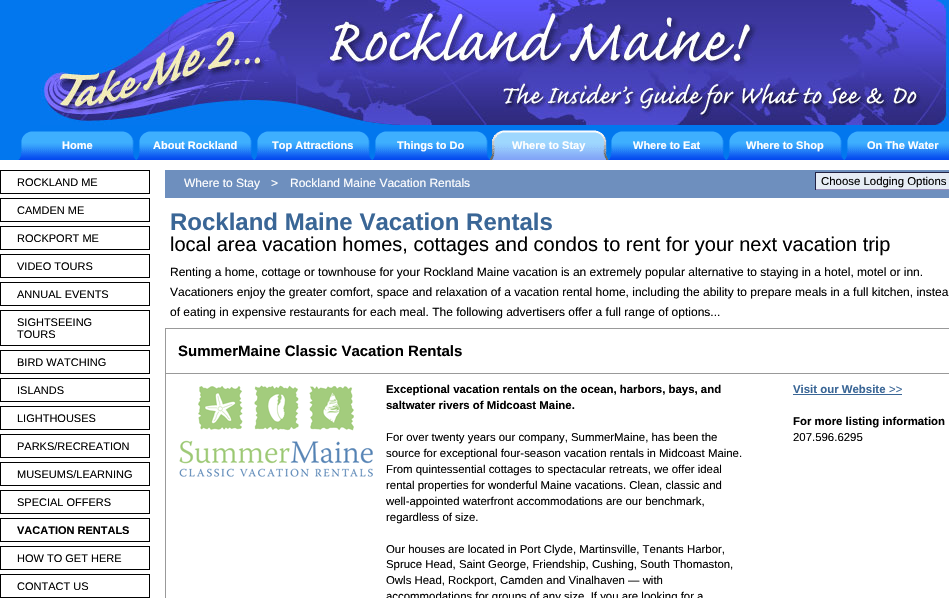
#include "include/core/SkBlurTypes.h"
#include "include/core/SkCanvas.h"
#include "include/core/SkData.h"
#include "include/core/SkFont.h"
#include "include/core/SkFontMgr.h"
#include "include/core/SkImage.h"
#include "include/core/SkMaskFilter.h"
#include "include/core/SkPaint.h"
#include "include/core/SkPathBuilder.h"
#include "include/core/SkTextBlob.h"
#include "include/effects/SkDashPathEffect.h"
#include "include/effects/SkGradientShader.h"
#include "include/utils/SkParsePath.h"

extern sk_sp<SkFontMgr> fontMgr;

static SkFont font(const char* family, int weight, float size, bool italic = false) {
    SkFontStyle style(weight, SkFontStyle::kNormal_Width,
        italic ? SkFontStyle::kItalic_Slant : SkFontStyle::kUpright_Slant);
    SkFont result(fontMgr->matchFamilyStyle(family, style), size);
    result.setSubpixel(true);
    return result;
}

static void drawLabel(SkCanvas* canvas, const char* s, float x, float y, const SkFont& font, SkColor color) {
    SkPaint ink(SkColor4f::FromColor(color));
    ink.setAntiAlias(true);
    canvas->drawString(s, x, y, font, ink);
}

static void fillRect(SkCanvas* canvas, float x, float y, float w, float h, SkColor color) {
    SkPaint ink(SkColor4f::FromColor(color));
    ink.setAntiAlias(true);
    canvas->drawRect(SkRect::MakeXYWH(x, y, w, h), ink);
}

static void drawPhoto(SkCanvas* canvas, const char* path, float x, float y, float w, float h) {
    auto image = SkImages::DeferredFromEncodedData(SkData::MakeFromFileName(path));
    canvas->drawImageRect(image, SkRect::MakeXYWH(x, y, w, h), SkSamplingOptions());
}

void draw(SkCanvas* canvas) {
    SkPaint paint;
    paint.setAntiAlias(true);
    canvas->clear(0xFFFFFFFF);
    fillRect(canvas, 0, 0, 949, 160, 0xFF0277EE);
    drawPhoto(canvas, "assets/img1.png", 40, 0, 909, 125);
    drawPhoto(canvas, "assets/img2.png", 18, 131, 118, 29);
    SkFont font1 = font("Liberation Sans", 700, 11);
    drawLabel(canvas, "Home", 62, 149, font1, 0xFFFFFFFF);
    drawPhoto(canvas, "assets/img2.png", 136, 131, 118, 29);
    drawLabel(canvas, "About Rockland", 153, 149, font1, 0xFFFFFFFF);
    drawPhoto(canvas, "assets/img2.png", 254, 131, 118, 29);
    drawLabel(canvas, "Top Attractions", 272, 149, font1, 0xFFFFFFFF);
    drawPhoto(canvas, "assets/img2.png", 372, 131, 118, 29);
    drawLabel(canvas, "Things to Do", 397, 149, font1, 0xFFFFFFFF);
    drawPhoto(canvas, "assets/img3.png", 490, 130, 118, 30);
    drawLabel(canvas, "Where to Stay", 512, 149, font1, 0xFFFFFFFF);
    drawPhoto(canvas, "assets/img2.png", 608, 131, 118, 29);
    drawLabel(canvas, "Where to Eat", 633, 149, font1, 0xFFFFFFFF);
    drawPhoto(canvas, "assets/img2.png", 726, 131, 118, 29);
    drawLabel(canvas, "Where to Shop", 746, 149, font1, 0xFFFFFFFF);
    drawPhoto(canvas, "assets/img4.png", 844, 131, 105, 29);
    drawLabel(canvas, "On The Water", 867, 149, font1, 0xFFFFFFFF);
    paint.setStroke(true);
    paint.setStrokeWidth(1);
    paint.setColor(0xFF000000);
    canvas->drawRect(SkRect::MakeXYWH(0.5f, 170.5f, 149, 23), paint);
    SkFont font2 = font("Liberation Sans", 400, 11);
    drawLabel(canvas, "ROCKLAND ME", 17, 186, font2, 0xFF000000);
    canvas->drawRect(SkRect::MakeXYWH(0.5f, 198.5f, 149, 23), paint);
    drawLabel(canvas, "CAMDEN ME", 17, 214, font2, 0xFF000000);
    canvas->drawRect(SkRect::MakeXYWH(0.5f, 226.5f, 149, 23), paint);
    drawLabel(canvas, "ROCKPORT ME", 17, 242, font2, 0xFF000000);
    canvas->drawRect(SkRect::MakeXYWH(0.5f, 254.5f, 149, 23), paint);
    drawLabel(canvas, "VIDEO TOURS", 17, 270, font2, 0xFF000000);
    canvas->drawRect(SkRect::MakeXYWH(0.5f, 282.5f, 149, 23), paint);
    drawLabel(canvas, "ANNUAL EVENTS", 17, 298, font2, 0xFF000000);
    canvas->drawRect(SkRect::MakeXYWH(0.5f, 310.5f, 149, 35), paint);
    drawLabel(canvas, "SIGHTSEEING", 17, 326, font2, 0xFF000000);
    drawLabel(canvas, "TOURS", 17, 338, font2, 0xFF000000);
    canvas->drawRect(SkRect::MakeXYWH(0.5f, 350.5f, 149, 23), paint);
    drawLabel(canvas, "BIRD WATCHING", 17, 366, font2, 0xFF000000);
    canvas->drawRect(SkRect::MakeXYWH(0.5f, 378.5f, 149, 23), paint);
    drawLabel(canvas, "ISLANDS", 17, 394, font2, 0xFF000000);
    canvas->drawRect(SkRect::MakeXYWH(0.5f, 406.5f, 149, 23), paint);
    drawLabel(canvas, "LIGHTHOUSES", 17, 422, font2, 0xFF000000);
    canvas->drawRect(SkRect::MakeXYWH(0.5f, 434.5f, 149, 23), paint);
    drawLabel(canvas, "PARKS/RECREATION", 17, 450, font2, 0xFF000000);
    canvas->drawRect(SkRect::MakeXYWH(0.5f, 462.5f, 149, 23), paint);
    drawLabel(canvas, "MUSEUMS/LEARNING", 17, 478, font2, 0xFF000000);
    canvas->drawRect(SkRect::MakeXYWH(0.5f, 490.5f, 149, 23), paint);
    drawLabel(canvas, "SPECIAL OFFERS", 17, 506, font2, 0xFF000000);
    canvas->drawRect(SkRect::MakeXYWH(0.5f, 518.5f, 149, 23), paint);
    drawLabel(canvas, "VACATION RENTALS", 17, 534, font1, 0xFF000000);
    canvas->drawRect(SkRect::MakeXYWH(0.5f, 546.5f, 149, 23), paint);
    drawLabel(canvas, "HOW TO GET HERE", 17, 562, font2, 0xFF000000);
    canvas->drawRect(SkRect::MakeXYWH(0.5f, 574.5f, 149, 23), paint);
    drawLabel(canvas, "CONTACT US", 17, 590, font2, 0xFF000000);
    fillRect(canvas, 165, 170, 784, 28, 0xFF6E8FBE);
    SkFont font3 = font("Liberation Sans", 400, 12);
    drawLabel(canvas, "Where to Stay", 184, 187, font3, 0xFFFFFFFF);
    drawLabel(canvas, ">", 271, 187, font3, 0xFFFFFFFF);
    drawLabel(canvas, "Rockland Maine Vacation Rentals", 290, 187, font3, 0xFFFFFFFF);
    fillRect(canvas, 816, 173, 133, 16, 0xFFE6ECF5);
    fillRect(canvas, 815, 172, 134, 1, 0xFF222244);
    fillRect(canvas, 815, 189, 134, 1, 0xFF978EBA);
    fillRect(canvas, 815, 172, 1, 18, 0xFF222244);
    SkFont font4 = font("Liberation Sans", 400, 11.4f);
    drawLabel(canvas, "Choose Lodging Options", 821, 185, font4, 0xFF000000);
    SkFont font5 = font("Liberation Sans", 700, 24);
    drawLabel(canvas, "Rockland Maine Vacation Rentals", 170, 230, font5, 0xFF3A6696);
    SkFont font6 = font("Liberation Sans", 400, 20);
    drawLabel(canvas, "local area vacation homes, cottages and condos to rent for your next vacation trip", 170, 251, font6, 0xFF000000);
    drawLabel(canvas, "Renting a home, cottage or townhouse for your Rockland Maine vacation is an extremely popular alternative to staying in a hotel, motel or inn.", 170, 276, font3, 0xFF000000);
    drawLabel(canvas, "Vacationers enjoy the greater comfort, space and relaxation of a vacation rental home, including the ability to prepare meals in a full kitchen, instea", 170, 296, font3, 0xFF000000);
    drawLabel(canvas, "of eating in expensive restaurants for each meal. The following advertisers offer a full range of options...", 170, 316, font3, 0xFF000000);
    fillRect(canvas, 165, 328, 784, 1, 0xFF999999);
    fillRect(canvas, 165, 328, 1, 270, 0xFF999999);
    SkFont font7 = font("Liberation Sans", 700, 15);
    drawLabel(canvas, "SummerMaine Classic Vacation Rentals", 178, 356, font7, 0xFF000000);
    fillRect(canvas, 165, 373, 784, 1, 0xFF999999);
    drawPhoto(canvas, "assets/img5.png", 179, 385, 194, 92);
    SkFont font8 = font("Liberation Sans", 700, 11.4f);
    drawLabel(canvas, "Exceptional vacation rentals on the ocean, harbors, bays, and", 386, 393, font8, 0xFF000000);
    drawLabel(canvas, "saltwater rivers of Midcoast Maine.", 386, 409, font8, 0xFF000000);
    drawLabel(canvas, "For over twenty years our company, SummerMaine, has been the", 386, 441, font4, 0xFF000000);
    drawLabel(canvas, "source for exceptional four-season vacation rentals in Midcoast Maine.", 386, 457, font4, 0xFF000000);
    drawLabel(canvas, "From quintessential cottages to spectacular retreats, we offer ideal", 386, 473, font4, 0xFF000000);
    drawLabel(canvas, "rental properties for wonderful Maine vacations. Clean, classic and", 386, 489, font4, 0xFF000000);
    drawLabel(canvas, "well-appointed waterfront accommodations are our benchmark,", 386, 505, font4, 0xFF000000);
    drawLabel(canvas, "regardless of size.", 386, 521, font4, 0xFF000000);
    drawLabel(canvas, "Our houses are located in Port Clyde, Martinsville, Tenants Harbor,", 386, 553, font4, 0xFF000000);
    drawLabel(canvas, "Spruce Head, Saint George, Friendship, Cushing, South Thomaston,", 386, 568, font4, 0xFF000000);
    drawLabel(canvas, "Owls Head, Rockport, Camden and Vinalhaven — with", 386, 584, font4, 0xFF000000);
    drawLabel(canvas, "accommodations for groups of any size. If you are looking for a", 386, 600, font4, 0xFF000000);
    drawLabel(canvas, "Visit our Website", 793, 393, font8, 0xFF3A6696);
    drawLabel(canvas, ">>", 889, 393, font4, 0xFF3A6696);
    fillRect(canvas, 793, 394, 109, 1, 0xFF3A6696);
    drawLabel(canvas, "For more listing information", 793, 425, font8, 0xFF000000);
    drawLabel(canvas, "207.596.6295", 793, 441, font4, 0xFF000000);
}
